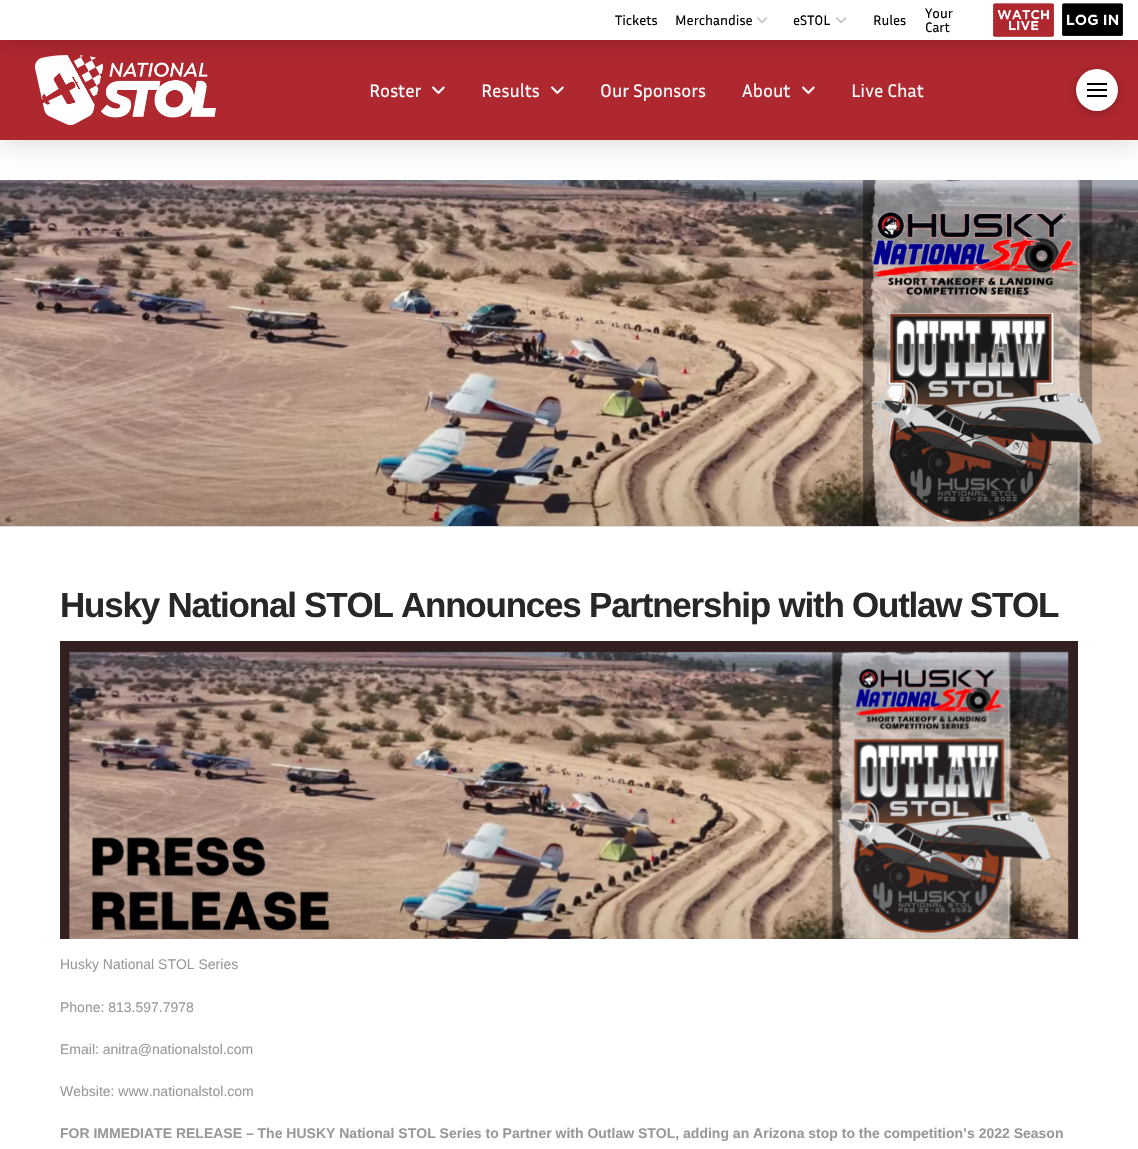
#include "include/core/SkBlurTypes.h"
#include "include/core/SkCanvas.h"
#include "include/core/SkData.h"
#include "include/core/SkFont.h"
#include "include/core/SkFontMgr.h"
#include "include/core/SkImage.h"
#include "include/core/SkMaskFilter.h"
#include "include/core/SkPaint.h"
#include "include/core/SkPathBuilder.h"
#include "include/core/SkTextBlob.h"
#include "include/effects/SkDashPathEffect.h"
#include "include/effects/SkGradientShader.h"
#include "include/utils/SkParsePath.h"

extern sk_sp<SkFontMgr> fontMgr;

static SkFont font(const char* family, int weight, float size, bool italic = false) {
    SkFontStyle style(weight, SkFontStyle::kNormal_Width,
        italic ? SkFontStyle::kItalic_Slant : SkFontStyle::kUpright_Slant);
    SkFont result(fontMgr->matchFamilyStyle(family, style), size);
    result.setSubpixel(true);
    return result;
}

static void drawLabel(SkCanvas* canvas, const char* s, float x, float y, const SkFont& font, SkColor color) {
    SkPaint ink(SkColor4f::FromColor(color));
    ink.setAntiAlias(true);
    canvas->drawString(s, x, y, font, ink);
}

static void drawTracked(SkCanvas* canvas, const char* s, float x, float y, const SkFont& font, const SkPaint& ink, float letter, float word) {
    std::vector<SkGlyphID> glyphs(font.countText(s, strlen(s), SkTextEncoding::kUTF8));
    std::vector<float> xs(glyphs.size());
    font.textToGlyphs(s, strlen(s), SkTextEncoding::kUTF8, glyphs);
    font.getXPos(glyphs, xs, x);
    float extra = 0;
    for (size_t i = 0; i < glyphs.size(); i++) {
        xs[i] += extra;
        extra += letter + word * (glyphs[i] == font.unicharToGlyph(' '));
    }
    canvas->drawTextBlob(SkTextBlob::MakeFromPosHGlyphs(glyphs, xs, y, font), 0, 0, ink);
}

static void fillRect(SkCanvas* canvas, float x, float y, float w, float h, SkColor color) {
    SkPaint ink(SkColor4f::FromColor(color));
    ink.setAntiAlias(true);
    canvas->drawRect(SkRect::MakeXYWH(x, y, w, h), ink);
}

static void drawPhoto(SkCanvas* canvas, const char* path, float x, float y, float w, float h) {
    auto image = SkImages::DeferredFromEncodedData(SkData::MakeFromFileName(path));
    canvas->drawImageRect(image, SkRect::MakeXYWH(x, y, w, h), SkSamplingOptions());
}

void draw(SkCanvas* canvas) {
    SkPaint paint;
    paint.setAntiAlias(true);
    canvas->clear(0xFFFFFFFF);
    drawPhoto(canvas, "assets/img6.png", 0, 180, 1138, 346);
    paint.setColor(0x26000000);
    paint.setMaskFilter(SkMaskFilter::MakeBlur(kNormal_SkBlurStyle, 12.5f));
    canvas->drawRect(SkRect::MakeXYWH(0, 43, 1138, 100), paint);
    paint.setMaskFilter(nullptr);
    fillRect(canvas, 0, 40, 1138, 100, 0xFFAF272F);
    drawPhoto(canvas, "assets/img4.png", 35, 55, 181, 70);
    paint.setColor(0x40000000);
    paint.setMaskFilter(SkMaskFilter::MakeBlur(kNormal_SkBlurStyle, 4.5f));
    canvas->drawRoundRect(SkRect::MakeXYWH(1076, 71, 42, 42), 21, 21, paint);
    paint.setMaskFilter(nullptr);
    paint.setColor(0xFFFFFFFF);
    canvas->drawCircle(1097, 90, 21, paint);
    paint.setColor(0x26000000);
    paint.setMaskFilter(SkMaskFilter::MakeBlur(kNormal_SkBlurStyle, 12.5f));
    canvas->drawRect(SkRect::MakeXYWH(0, 3, 1138, 40), paint);
    paint.setMaskFilter(nullptr);
    fillRect(canvas, 0, 0, 1138, 40, 0xFFFFFFFF);
    SkFont font1 = font("Inria Sans", 400, 14);
    drawLabel(canvas, "Tickets", 615, 25, font1, 0xFF000000);
    drawLabel(canvas, "Merchandise", 675, 25, font1, 0xFF000000);
    drawPhoto(canvas, "assets/img1.png", 757, 17, 11, 7);
    drawLabel(canvas, "eSTOL", 793, 25, font1, 0xFF000000);
    drawPhoto(canvas, "assets/img1.png", 836, 17, 11, 7);
    drawLabel(canvas, "Rules", 873, 25, font1, 0xFF000000);
    drawLabel(canvas, "Your", 925, 18, font1, 0xFF000000);
    drawLabel(canvas, "Cart", 925, 32, font1, 0xFF000000);
    drawPhoto(canvas, "assets/img2.png", 993, 3, 61, 34);
    drawPhoto(canvas, "assets/img3.png", 1062, 3, 61, 33);
    SkFont font2 = font("Inria Sans", 400, 18.5f);
    drawLabel(canvas, "Roster", 369, 97, font2, 0xFFFFFFFF);
    drawPhoto(canvas, "assets/img5.png", 432, 86, 13, 8);
    drawLabel(canvas, "Results", 481, 97, font2, 0xFFFFFFFF);
    drawPhoto(canvas, "assets/img5.png", 551, 86, 13, 8);
    drawLabel(canvas, "Our Sponsors", 600, 97, font2, 0xFFFFFFFF);
    drawLabel(canvas, "About", 742, 97, font2, 0xFFFFFFFF);
    drawPhoto(canvas, "assets/img5.png", 802, 86, 13, 8);
    drawLabel(canvas, "Live Chat", 851, 97, font2, 0xFFFFFFFF);
    fillRect(canvas, 1087, 83, 20, 2, 0xFF000000);
    fillRect(canvas, 1087, 89, 20, 2, 0xFF000000);
    fillRect(canvas, 1087, 95, 20, 2, 0xFF000000);
    fillRect(canvas, 0, 526, 1138, 1, 0xFFDDDDDD);
    SkFont font3 = font("Liberation Sans", 700, 35);
    paint.setColor(0xFF272727);
    drawTracked(canvas, "Husky National STOL Announces Partnership with Outlaw STOL", 60, 617, font3, paint, -1.23f, 0);
    drawPhoto(canvas, "assets/img7.png", 60, 641, 1018, 298);
    SkFont font4 = font("Liberation Sans", 400, 14);
    drawLabel(canvas, "Husky National STOL Series", 60, 969, font4, 0xFF999999);
    drawLabel(canvas, "Phone: 813.597.7978", 60, 1012, font4, 0xFF999999);
    drawLabel(canvas, "Email: anitra@nationalstol.com", 60, 1054, font4, 0xFF999999);
    drawLabel(canvas, "Website: www.nationalstol.com", 60, 1096, font4, 0xFF999999);
    SkFont font5 = font("Liberation Sans", 700, 14);
    drawLabel(canvas, "FOR IMMEDIATE RELEASE – The HUSKY National STOL Series to Partner with Outlaw STOL, adding an Arizona stop to the competition’s 2022 Season", 60, 1138, font5, 0xFF999999);
}
